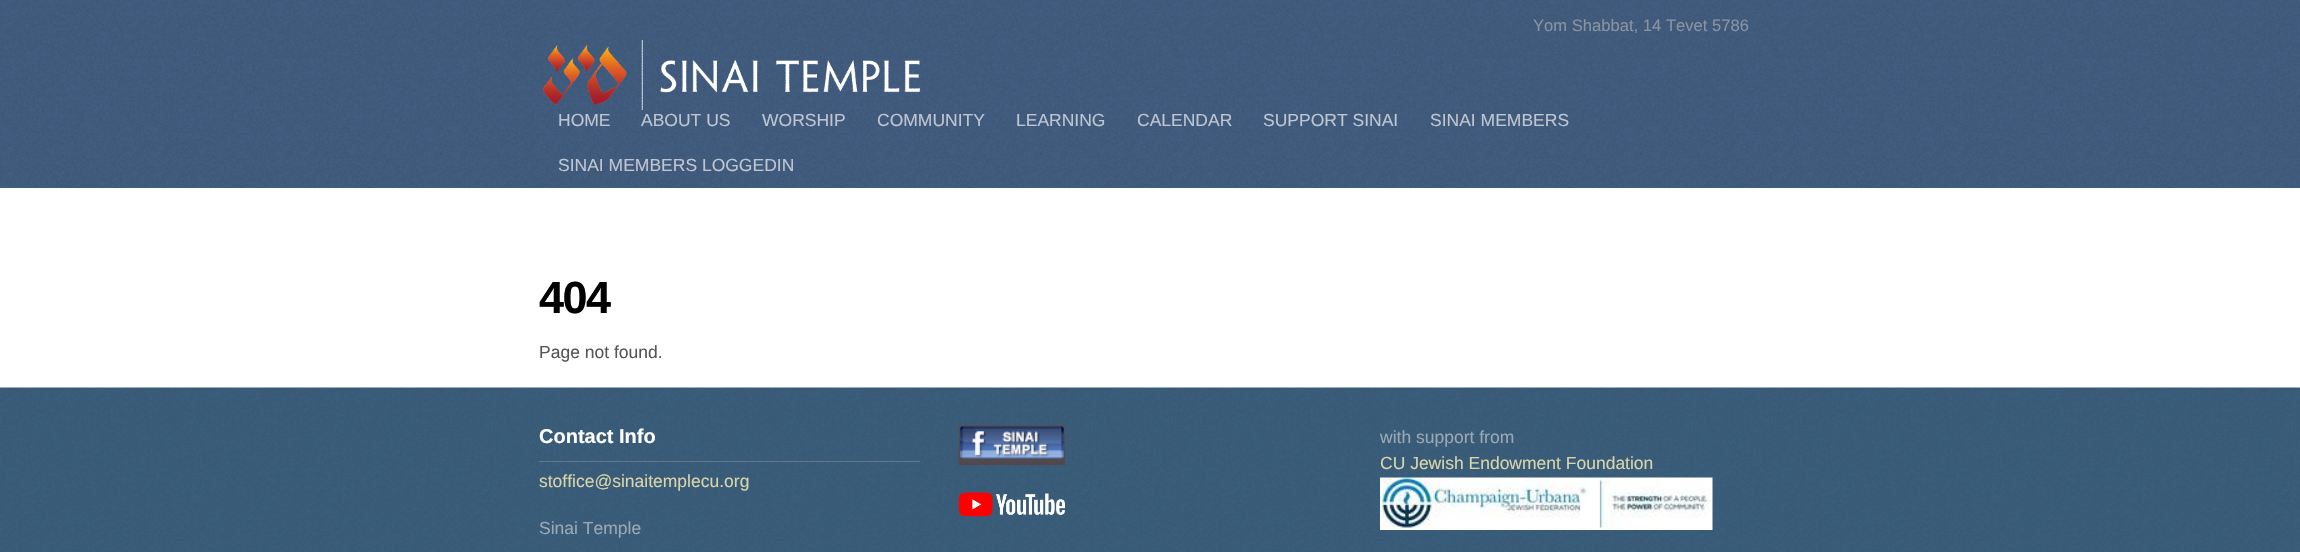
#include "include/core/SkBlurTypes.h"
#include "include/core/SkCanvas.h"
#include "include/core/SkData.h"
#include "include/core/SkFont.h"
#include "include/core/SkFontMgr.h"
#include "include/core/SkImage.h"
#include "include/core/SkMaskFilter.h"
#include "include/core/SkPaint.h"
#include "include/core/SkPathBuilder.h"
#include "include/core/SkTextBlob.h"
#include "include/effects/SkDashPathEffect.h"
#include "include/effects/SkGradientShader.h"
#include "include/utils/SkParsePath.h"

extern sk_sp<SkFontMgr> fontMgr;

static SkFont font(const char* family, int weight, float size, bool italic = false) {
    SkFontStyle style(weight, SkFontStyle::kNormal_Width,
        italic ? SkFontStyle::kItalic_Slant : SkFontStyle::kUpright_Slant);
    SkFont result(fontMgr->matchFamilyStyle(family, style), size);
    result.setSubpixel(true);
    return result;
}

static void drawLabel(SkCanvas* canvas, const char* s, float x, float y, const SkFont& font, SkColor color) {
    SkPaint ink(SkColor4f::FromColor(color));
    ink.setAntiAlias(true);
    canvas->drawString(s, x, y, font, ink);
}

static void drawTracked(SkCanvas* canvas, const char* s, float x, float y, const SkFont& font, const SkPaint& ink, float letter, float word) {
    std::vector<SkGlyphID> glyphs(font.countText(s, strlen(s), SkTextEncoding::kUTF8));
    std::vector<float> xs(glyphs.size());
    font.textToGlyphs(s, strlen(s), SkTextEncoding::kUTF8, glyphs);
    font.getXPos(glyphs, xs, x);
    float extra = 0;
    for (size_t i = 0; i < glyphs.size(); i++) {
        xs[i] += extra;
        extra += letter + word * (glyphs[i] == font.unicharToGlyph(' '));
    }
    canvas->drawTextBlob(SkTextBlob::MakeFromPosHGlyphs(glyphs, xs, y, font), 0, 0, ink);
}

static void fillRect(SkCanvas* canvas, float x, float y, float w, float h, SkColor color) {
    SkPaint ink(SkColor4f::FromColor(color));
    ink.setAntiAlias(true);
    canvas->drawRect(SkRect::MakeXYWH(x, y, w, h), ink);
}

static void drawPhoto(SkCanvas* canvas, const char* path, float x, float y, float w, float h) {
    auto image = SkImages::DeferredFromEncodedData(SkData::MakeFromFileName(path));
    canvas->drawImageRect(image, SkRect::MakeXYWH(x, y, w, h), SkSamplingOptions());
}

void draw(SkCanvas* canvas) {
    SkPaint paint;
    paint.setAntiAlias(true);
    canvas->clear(0xFFFFFFFF);
    drawPhoto(canvas, "assets/img1.png", 0, 0, 2300, 188);
    SkFont font1 = font("Liberation Sans", 400, 16.6f);
    drawLabel(canvas, "Yom Shabbat, 14 Tevet 5786", 1533, 31, font1, 0xFF8B93A2);
    drawPhoto(canvas, "assets/img2.png", 543, 40, 378, 70);
    SkFont font2 = font("Liberation Sans", 400, 17.5f);
    drawLabel(canvas, "HOME", 558, 126, font2, 0xFFBFC5D1);
    drawLabel(canvas, "ABOUT US", 641, 126, font2, 0xFFBFC5D1);
    drawLabel(canvas, "WORSHIP", 762, 126, font2, 0xFFBFC5D1);
    drawLabel(canvas, "COMMUNITY", 877, 126, font2, 0xFFBFC5D1);
    drawLabel(canvas, "LEARNING", 1016, 126, font2, 0xFFBFC5D1);
    drawLabel(canvas, "CALENDAR", 1137, 126, font2, 0xFFBFC5D1);
    drawLabel(canvas, "SUPPORT SINAI", 1263, 126, font2, 0xFFBFC5D1);
    drawLabel(canvas, "SINAI MEMBERS", 1430, 126, font2, 0xFFBFC5D1);
    drawLabel(canvas, "SINAI MEMBERS LOGGEDIN", 558, 171, font2, 0xFFBFC5D1);
    SkFont font3 = font("Liberation Sans", 700, 45);
    paint.setColor(0xFF000000);
    drawTracked(canvas, "404", 539, 313, font3, paint, -1.5f, 0);
    drawLabel(canvas, "Page not found.", 539, 358, font2, 0xFF555555);
    drawPhoto(canvas, "assets/img3.png", 0, 387, 2300, 165);
    fillRect(canvas, 539, 461, 381, 1, 0xFF60778C);
    SkFont font4 = font("Liberation Sans", 700, 20);
    drawLabel(canvas, "Contact Info", 539, 443, font4, 0xFFFFFFFF);
    drawLabel(canvas, "stoffice@sinaitemplecu.org", 539, 487, font2, 0xFFD8D4AB);
    drawLabel(canvas, "Sinai Temple", 539, 534, font2, 0xFF9CA8B3);
    drawPhoto(canvas, "assets/img4.png", 958, 425, 107, 40);
    drawPhoto(canvas, "assets/img5.png", 958, 492, 107, 25);
    drawLabel(canvas, "with support from", 1380, 443, font2, 0xFF9CA8B3);
    drawLabel(canvas, "CU Jewish Endowment Foundation", 1380, 469, font2, 0xFFD8D4AB);
    drawPhoto(canvas, "assets/img6.png", 1380, 477, 333, 53);
}
